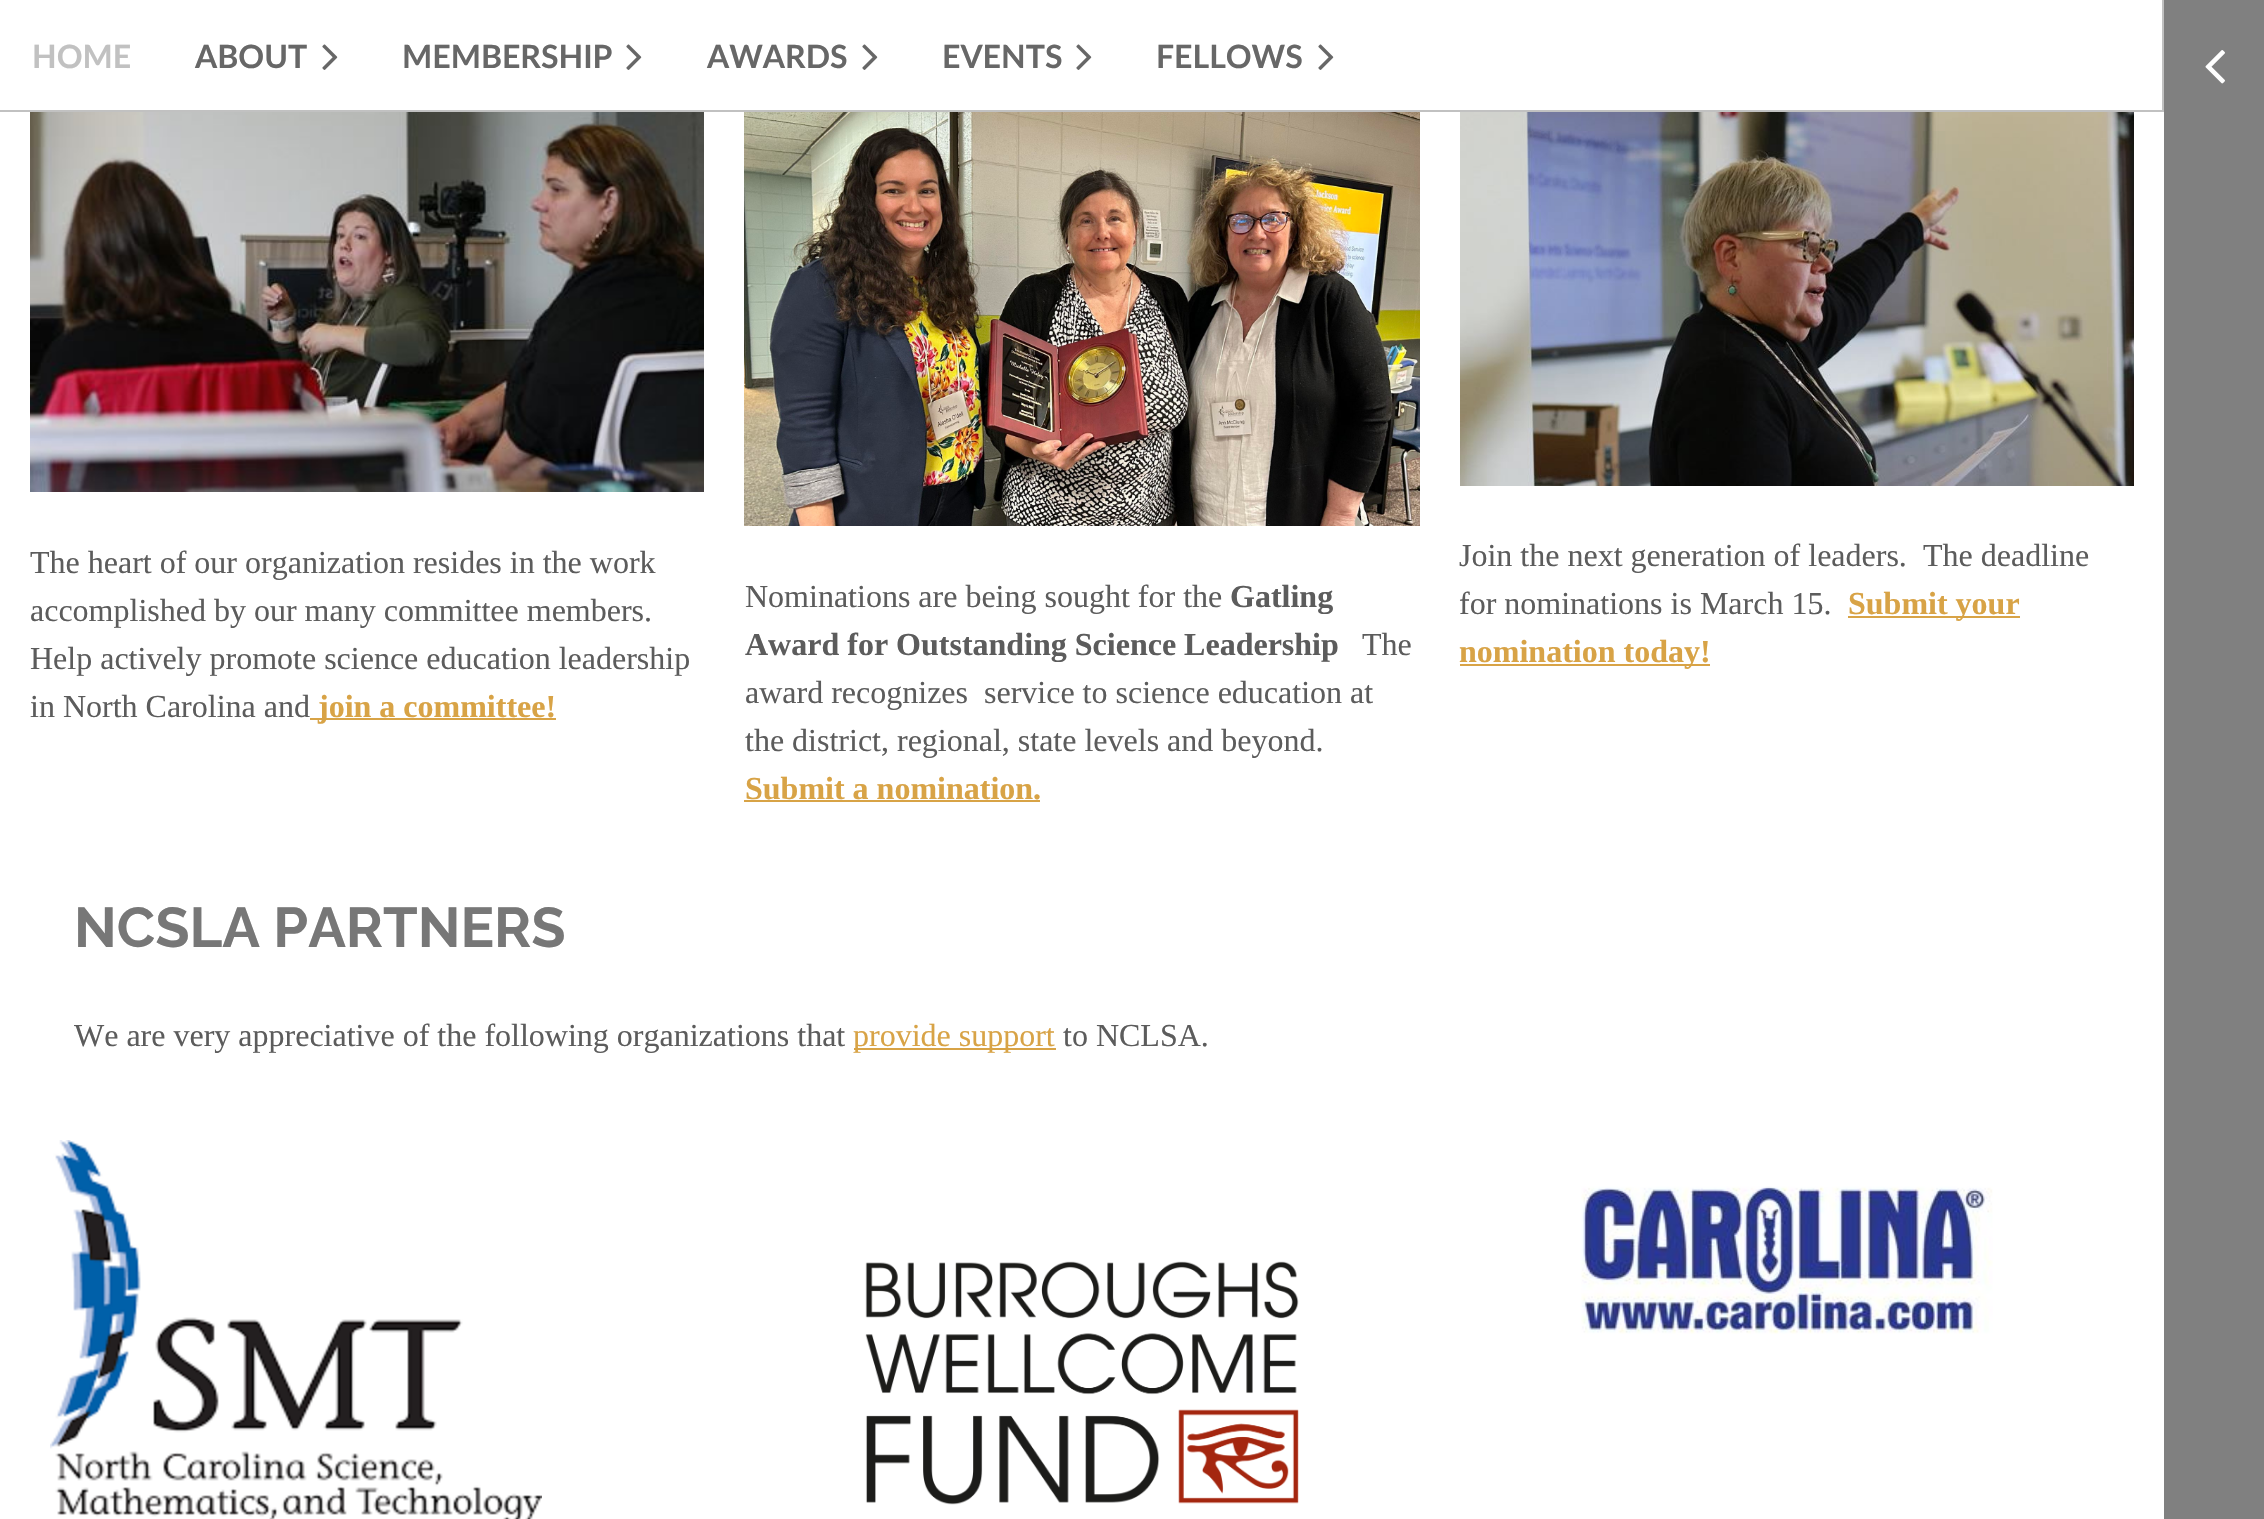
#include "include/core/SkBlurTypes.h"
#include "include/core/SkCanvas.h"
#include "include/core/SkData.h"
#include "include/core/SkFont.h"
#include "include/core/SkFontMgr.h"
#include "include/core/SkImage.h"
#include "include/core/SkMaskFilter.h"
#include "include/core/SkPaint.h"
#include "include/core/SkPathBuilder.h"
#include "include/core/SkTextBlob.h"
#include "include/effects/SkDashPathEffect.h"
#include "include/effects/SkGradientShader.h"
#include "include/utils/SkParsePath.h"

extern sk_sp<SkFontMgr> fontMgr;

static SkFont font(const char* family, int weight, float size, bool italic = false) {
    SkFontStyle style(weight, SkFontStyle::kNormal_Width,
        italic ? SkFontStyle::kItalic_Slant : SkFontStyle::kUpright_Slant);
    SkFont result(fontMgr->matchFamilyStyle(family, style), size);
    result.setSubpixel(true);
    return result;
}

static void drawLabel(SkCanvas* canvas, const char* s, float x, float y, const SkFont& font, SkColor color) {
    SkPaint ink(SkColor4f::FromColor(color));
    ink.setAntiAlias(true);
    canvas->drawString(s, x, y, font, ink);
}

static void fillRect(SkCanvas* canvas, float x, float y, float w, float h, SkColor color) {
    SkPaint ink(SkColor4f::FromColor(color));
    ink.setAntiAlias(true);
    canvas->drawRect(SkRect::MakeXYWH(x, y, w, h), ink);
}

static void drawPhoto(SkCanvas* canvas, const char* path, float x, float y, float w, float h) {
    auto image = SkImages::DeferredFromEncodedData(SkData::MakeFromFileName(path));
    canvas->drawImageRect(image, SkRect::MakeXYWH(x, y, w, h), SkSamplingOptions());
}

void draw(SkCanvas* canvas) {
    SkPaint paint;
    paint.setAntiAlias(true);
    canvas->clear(0xFFFFFFFF);
    fillRect(canvas, 2162, 0, 2, 112, 0xFFC1C1C1);
    fillRect(canvas, 0, 110, 2164, 2, 0xFFC1C1C1);
    SkFont font1 = font("Lato", 700, 32);
    drawLabel(canvas, "HOME", 32, 68, font1, 0xFFC1C1C1);
    drawLabel(canvas, "ABOUT", 195, 68, font1, 0xFF676767);
    drawPhoto(canvas, "assets/img1.png", 322, 44, 16, 26);
    drawLabel(canvas, "MEMBERSHIP", 402, 68, font1, 0xFF676767);
    drawPhoto(canvas, "assets/img1.png", 626, 44, 16, 26);
    drawLabel(canvas, "AWARDS", 707, 68, font1, 0xFF676767);
    drawPhoto(canvas, "assets/img1.png", 862, 44, 16, 26);
    drawLabel(canvas, "EVENTS", 942, 68, font1, 0xFF676767);
    drawPhoto(canvas, "assets/img1.png", 1076, 44, 16, 26);
    drawLabel(canvas, "FELLOWS", 1156, 68, font1, 0xFF676767);
    drawPhoto(canvas, "assets/img1.png", 1318, 44, 16, 26);
    drawPhoto(canvas, "assets/img2.png", 30, 112, 674, 380);
    SkFont font2 = font("Liberation Serif", 400, 32);
    drawLabel(canvas, "The heart of our organization resides in the work", 30, 573, font2, 0xFF5C5C5C);
    drawLabel(canvas, "accomplished by our many committee members.", 30, 621, font2, 0xFF5C5C5C);
    drawLabel(canvas, "Help actively promote science education leadership", 30, 669, font2, 0xFF5C5C5C);
    drawLabel(canvas, "in North Carolina and", 30, 717, font2, 0xFF5C5C5C);
    fillRect(canvas, 310, 718, 246, 2, 0xFFD8A346);
    SkFont font3 = font("Liberation Serif", 700, 32);
    drawLabel(canvas, "join a committee!", 318, 717, font3, 0xFFD8A346);
    drawPhoto(canvas, "assets/img3.png", 744, 112, 676, 414);
    drawLabel(canvas, "Nominations are being sought for the", 745, 607, font2, 0xFF5C5C5C);
    drawLabel(canvas, "Gatling", 1230, 607, font3, 0xFF5C5C5C);
    drawLabel(canvas, "Award for Outstanding Science Leadership", 745, 655, font3, 0xFF5C5C5C);
    drawLabel(canvas, "The", 1362, 655, font2, 0xFF5C5C5C);
    drawLabel(canvas, "award recognizes  service to science education at", 745, 703, font2, 0xFF5C5C5C);
    drawLabel(canvas, "the district, regional, state levels and beyond.", 745, 751, font2, 0xFF5C5C5C);
    drawLabel(canvas, "Submit a nomination.", 745, 799, font3, 0xFFD8A346);
    fillRect(canvas, 744, 800, 296, 2, 0xFFD8A346);
    drawPhoto(canvas, "assets/img4.png", 1460, 112, 674, 374);
    drawLabel(canvas, "Join the next generation of leaders.", 1459, 566, font2, 0xFF5C5C5C);
    drawLabel(canvas, "The deadline", 1923, 566, font2, 0xFF5C5C5C);
    drawLabel(canvas, "for nominations is March 15.", 1459, 614, font2, 0xFF5C5C5C);
    fillRect(canvas, 1848, 616, 172, 2, 0xFFD8A346);
    drawLabel(canvas, "Submit your", 1848, 614, font3, 0xFFD8A346);
    fillRect(canvas, 1460, 664, 250, 2, 0xFFD8A346);
    drawLabel(canvas, "nomination today!", 1459, 662, font3, 0xFFD8A346);
    SkFont font4 = font("Raleway", 700, 56);
    drawLabel(canvas, "NCSLA PARTNERS", 74, 947, font4, 0xFF777777);
    drawLabel(canvas, "We are very appreciative of the following organizations that", 74, 1046, font2, 0xFF5C5C5C);
    fillRect(canvas, 854, 1048, 202, 2, 0xFFD8A346);
    drawLabel(canvas, "provide support", 853, 1046, font2, 0xFFD8A346);
    drawLabel(canvas, "to NCLSA.", 1063, 1046, font2, 0xFF5C5C5C);
    drawPhoto(canvas, "assets/img5.png", 50, 1140, 492, 379);
    drawPhoto(canvas, "assets/img6.png", 865, 1261, 434, 244);
    drawPhoto(canvas, "assets/img7.png", 1581, 1186, 412, 148);
    fillRect(canvas, 2164, 0, 100, 1519, 0xFF808080);
    drawPhoto(canvas, "assets/img8.png", 2205, 50, 20, 34);
}
